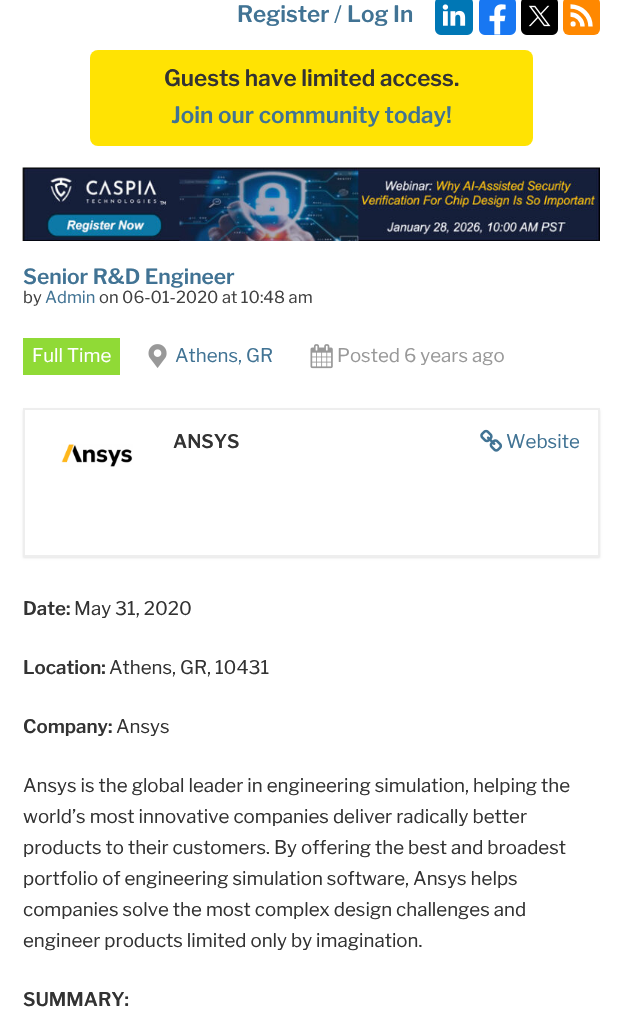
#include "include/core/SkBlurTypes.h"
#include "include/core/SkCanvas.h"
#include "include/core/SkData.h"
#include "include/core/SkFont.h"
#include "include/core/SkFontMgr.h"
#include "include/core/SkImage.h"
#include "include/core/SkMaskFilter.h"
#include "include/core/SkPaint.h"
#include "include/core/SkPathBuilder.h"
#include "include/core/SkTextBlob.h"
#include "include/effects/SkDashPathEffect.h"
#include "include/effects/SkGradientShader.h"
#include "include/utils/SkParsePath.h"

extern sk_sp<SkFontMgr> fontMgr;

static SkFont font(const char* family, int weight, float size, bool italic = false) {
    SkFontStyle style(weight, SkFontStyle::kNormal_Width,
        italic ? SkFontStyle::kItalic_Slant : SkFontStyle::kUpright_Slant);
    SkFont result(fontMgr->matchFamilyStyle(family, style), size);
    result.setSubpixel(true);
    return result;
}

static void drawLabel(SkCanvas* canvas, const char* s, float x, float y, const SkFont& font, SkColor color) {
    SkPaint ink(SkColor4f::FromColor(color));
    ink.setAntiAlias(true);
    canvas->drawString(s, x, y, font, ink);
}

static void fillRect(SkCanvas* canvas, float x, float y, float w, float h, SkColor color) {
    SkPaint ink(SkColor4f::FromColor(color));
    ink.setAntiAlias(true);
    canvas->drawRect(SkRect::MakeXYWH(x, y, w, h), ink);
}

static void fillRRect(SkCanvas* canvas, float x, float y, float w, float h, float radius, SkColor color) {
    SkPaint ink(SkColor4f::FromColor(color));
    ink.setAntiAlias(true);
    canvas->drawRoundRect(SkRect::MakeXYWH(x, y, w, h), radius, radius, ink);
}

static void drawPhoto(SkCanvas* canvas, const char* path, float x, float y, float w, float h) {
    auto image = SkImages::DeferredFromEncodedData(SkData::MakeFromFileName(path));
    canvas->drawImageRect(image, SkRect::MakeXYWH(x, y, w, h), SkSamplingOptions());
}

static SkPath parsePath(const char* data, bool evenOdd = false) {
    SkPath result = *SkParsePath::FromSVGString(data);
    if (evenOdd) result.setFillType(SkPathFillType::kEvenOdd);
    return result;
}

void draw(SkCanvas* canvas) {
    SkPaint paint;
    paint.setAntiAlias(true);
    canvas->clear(0xFFFFFFFF);
    SkFont font1 = font("Libre Franklin", 600, 22.5f);
    drawLabel(canvas, "Register", 237, 22, font1, 0xFF417394);
    SkFont font2 = font("Libre Franklin", 400, 22.5f);
    drawLabel(canvas, "/", 334, 22, font2, 0xFF417394);
    drawLabel(canvas, "Log In", 347, 22, font1, 0xFF417394);
    drawPhoto(canvas, "assets/img1.png", 435, 0, 38, 35);
    drawPhoto(canvas, "assets/img2.png", 479, 0, 37, 35);
    drawPhoto(canvas, "assets/img3.png", 521, 0, 37, 35);
    fillRRect(canvas, 563, -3, 37, 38, 6, 0xFFFF8800);
    paint.setColor(0xFFFFFFFF);
    canvas->drawCircle(573.1f, 23.9f, 2.6f, paint);
    paint.setStroke(true);
    paint.setStrokeWidth(4.4f);
    canvas->drawPath(parsePath("M570.5 14.5C577 14.5 582.5 20 582.5 26.5M590.5 26.5C590.5 15.5 581.5 6.5 570.5 6.5"), paint);
    fillRRect(canvas, 90, 50, 443, 96, 8, 0xFFFFE303);
    drawLabel(canvas, "Guests have limited access.", 164, 86, font1, 0xFF333333);
    drawLabel(canvas, "Join our community today!", 171, 123, font1, 0xFF417394);
    drawPhoto(canvas, "assets/img4.png", 22, 167, 578, 74);
    SkFont font3 = font("Libre Franklin", 600, 21);
    drawLabel(canvas, "Senior R&D Engineer", 23, 284, font3, 0xFF417394);
    SkFont font4 = font("Libre Franklin", 400, 16.5f);
    drawLabel(canvas, "by", 23, 303, font4, 0xFF414141);
    drawLabel(canvas, "Admin", 45, 303, font4, 0xFF417394);
    drawLabel(canvas, "on 06-01-2020 at 10:48 am", 99, 303, font4, 0xFF414141);
    fillRect(canvas, 23, 338, 97, 37, 0xFF90DA36);
    SkFont font5 = font("Libre Franklin", 400, 18.7f);
    drawLabel(canvas, "Full Time", 32, 362, font5, 0xFFFFFFFF);
    drawPhoto(canvas, "assets/img5.png", 148, 344, 19, 24);
    drawLabel(canvas, "Athens, GR", 175, 362, font5, 0xFF417394);
    drawPhoto(canvas, "assets/img6.png", 310, 344, 23, 25);
    drawLabel(canvas, "Posted 6 years ago", 337, 362, font5, 0xFF999999);
    canvas->save();
    canvas->clipPath(parsePath("M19 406H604V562H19ZM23 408H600V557H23Z", true), true);
    paint.setStroke(false);
    paint.setColor(0x1A000000);
    paint.setMaskFilter(SkMaskFilter::MakeBlur(kNormal_SkBlurStyle, 1));
    canvas->drawRect(SkRect::MakeXYWH(23, 410, 577, 148), paint);
    paint.setMaskFilter(nullptr);
    canvas->restore();
    paint.setStroke(true);
    paint.setStrokeWidth(2);
    paint.setColor(0xFFEEEEEE);
    canvas->drawRect(SkRect::MakeXYWH(24, 409, 575, 147), paint);
    SkFont font6 = font("Libre Franklin", 600, 18.7f);
    drawLabel(canvas, "ANSYS", 173, 448, font6, 0xFF333333);
    drawPhoto(canvas, "assets/img7.png", 480, 429, 23, 23);
    drawLabel(canvas, "Website", 506, 448, font5, 0xFF417394);
    drawPhoto(canvas, "assets/img8.png", 61, 444, 72, 23);
    drawLabel(canvas, "Date:", 23, 615, font6, 0xFF333333);
    drawLabel(canvas, "May 31, 2020", 74, 615, font5, 0xFF333333);
    drawLabel(canvas, "Location:", 23, 674, font6, 0xFF333333);
    drawLabel(canvas, "Athens, GR, 10431", 109, 674, font5, 0xFF333333);
    drawLabel(canvas, "Company:", 23, 733, font6, 0xFF333333);
    drawLabel(canvas, "Ansys", 116, 733, font5, 0xFF333333);
    drawLabel(canvas, "Ansys is the global leader in engineering simulation, helping the", 23, 792, font5, 0xFF333333);
    drawLabel(canvas, "world’s most innovative companies deliver radically better", 23, 823, font5, 0xFF333333);
    drawLabel(canvas, "products to their customers. By offering the best and broadest", 23, 854, font5, 0xFF333333);
    drawLabel(canvas, "portfolio of engineering simulation software, Ansys helps", 23, 885, font5, 0xFF333333);
    drawLabel(canvas, "companies solve the most complex design challenges and", 23, 916, font5, 0xFF333333);
    drawLabel(canvas, "engineer products limited only by imagination.", 23, 947, font5, 0xFF333333);
    drawLabel(canvas, "SUMMARY:", 23, 1006, font6, 0xFF333333);
}
